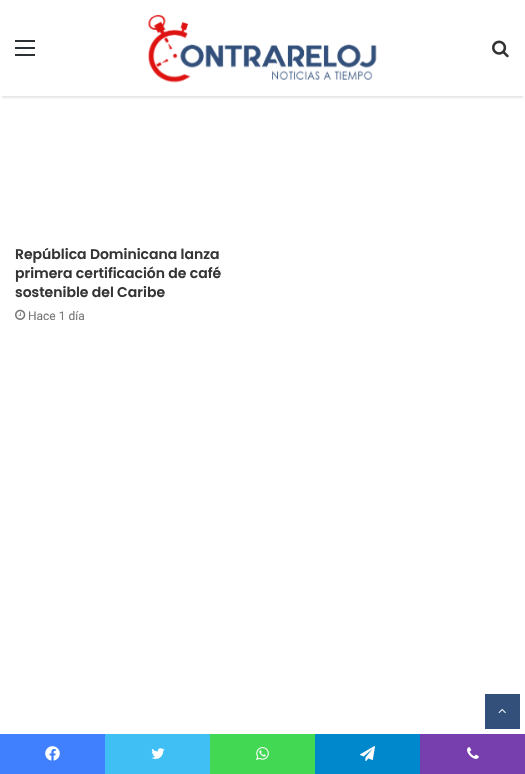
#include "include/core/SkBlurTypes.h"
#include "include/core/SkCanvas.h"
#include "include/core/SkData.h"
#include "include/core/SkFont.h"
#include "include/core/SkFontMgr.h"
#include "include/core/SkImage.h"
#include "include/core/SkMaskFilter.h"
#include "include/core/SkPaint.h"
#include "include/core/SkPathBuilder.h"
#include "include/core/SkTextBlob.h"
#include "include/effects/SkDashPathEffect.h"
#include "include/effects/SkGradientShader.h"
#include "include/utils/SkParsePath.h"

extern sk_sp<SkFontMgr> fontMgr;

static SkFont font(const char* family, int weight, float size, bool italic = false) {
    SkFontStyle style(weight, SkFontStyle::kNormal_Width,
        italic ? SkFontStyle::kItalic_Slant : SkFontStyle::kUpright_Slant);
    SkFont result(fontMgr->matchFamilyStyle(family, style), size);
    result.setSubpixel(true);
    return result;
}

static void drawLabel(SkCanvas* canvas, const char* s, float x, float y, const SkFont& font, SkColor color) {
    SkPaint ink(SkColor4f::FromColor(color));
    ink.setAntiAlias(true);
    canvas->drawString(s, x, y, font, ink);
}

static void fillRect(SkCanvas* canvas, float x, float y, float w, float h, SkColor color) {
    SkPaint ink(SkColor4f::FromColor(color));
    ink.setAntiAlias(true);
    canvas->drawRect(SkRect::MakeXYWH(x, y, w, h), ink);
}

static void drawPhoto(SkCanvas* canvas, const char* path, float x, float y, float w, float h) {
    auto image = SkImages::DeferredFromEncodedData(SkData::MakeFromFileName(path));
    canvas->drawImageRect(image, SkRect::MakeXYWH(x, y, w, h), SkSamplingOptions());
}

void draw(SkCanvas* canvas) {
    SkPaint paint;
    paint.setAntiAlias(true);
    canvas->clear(0xFFFFFFFF);
    drawPhoto(canvas, "assets/img3.png", 15, 43, 11, 11);
    drawPhoto(canvas, "assets/img3.png", 271, 62, 11, 11);
    canvas->save();
    canvas->clipRect(SkRect::MakeXYWH(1, 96, 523, 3));
    paint.setColor(0x1A000000);
    paint.setMaskFilter(SkMaskFilter::MakeBlur(kNormal_SkBlurStyle, 1));
    canvas->drawRect(SkRect::MakeXYWH(2, 6, 521, 92), paint);
    paint.setMaskFilter(nullptr);
    canvas->restore();
    fillRect(canvas, 15, 47, 20, 2, 0xFF2C2F34);
    fillRect(canvas, 15, 40, 20, 2, 0xFF2C2F34);
    fillRect(canvas, 15, 54, 20, 2, 0xFF2C2F34);
    drawPhoto(canvas, "assets/img1.png", 148, 14, 229, 69);
    drawPhoto(canvas, "assets/img2.png", 492, 40, 17, 18);
    SkFont font1 = font("Poppins", 600, 14);
    drawLabel(canvas, "República Dominicana lanza", 15, 259, font1, 0xFF353535);
    drawLabel(canvas, "primera certificación de café", 15, 278, font1, 0xFF353535);
    drawLabel(canvas, "sostenible del Caribe", 15, 297, font1, 0xFF353535);
    drawPhoto(canvas, "assets/img4.png", 15, 309, 11, 11);
    SkFont font2 = font("Roboto", 400, 12);
    drawLabel(canvas, "Hace 1 día", 28, 320, font2, 0xFF777777);
    fillRect(canvas, 485, 694, 35, 35, 0xFF33507B);
    drawPhoto(canvas, "assets/img5.png", 498, 708, 8, 6);
    fillRect(canvas, 0, 734, 105, 40, 0xFF4080FF);
    drawPhoto(canvas, "assets/img6.png", 45, 746, 15, 15);
    fillRect(canvas, 105, 734, 105, 40, 0xFF40BFF5);
    drawPhoto(canvas, "assets/img7.png", 151, 748, 14, 11);
    fillRect(canvas, 210, 734, 105, 40, 0xFF43D854);
    drawPhoto(canvas, "assets/img8.png", 256, 747, 13, 13);
    fillRect(canvas, 315, 734, 105, 40, 0xFF0088CC);
    drawPhoto(canvas, "assets/img9.png", 360, 746, 15, 15);
    fillRect(canvas, 420, 734, 105, 40, 0xFF773EAD);
    drawPhoto(canvas, "assets/img10.png", 467, 747, 12, 12);
}
